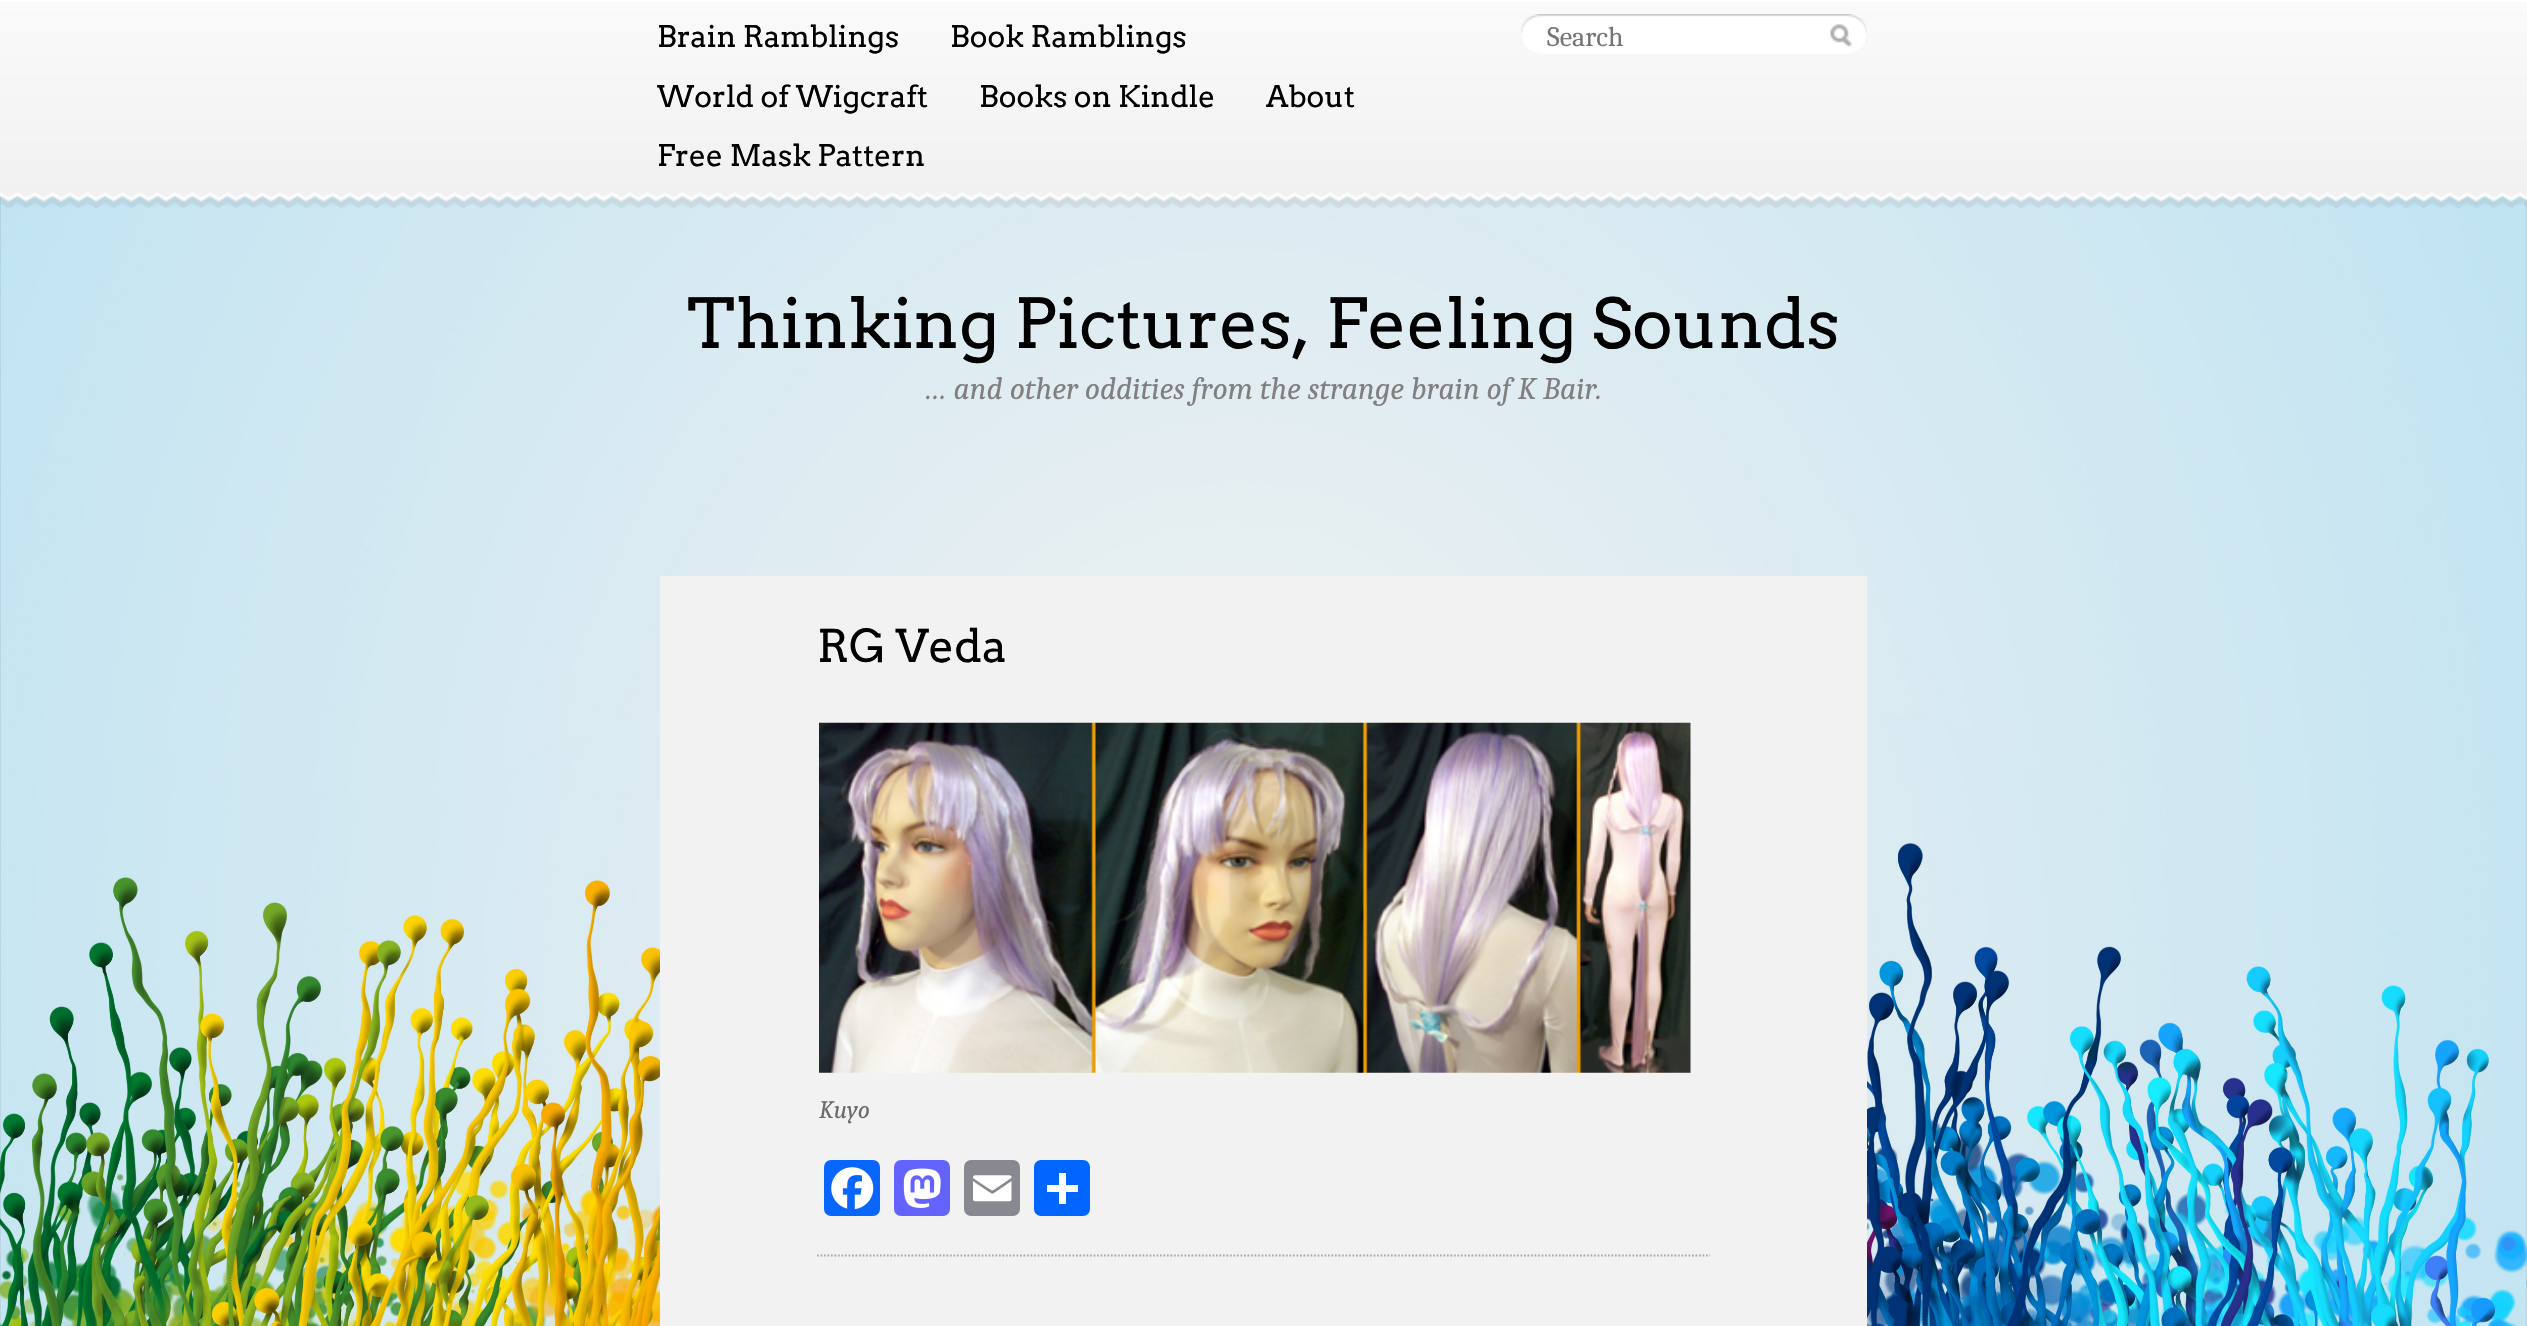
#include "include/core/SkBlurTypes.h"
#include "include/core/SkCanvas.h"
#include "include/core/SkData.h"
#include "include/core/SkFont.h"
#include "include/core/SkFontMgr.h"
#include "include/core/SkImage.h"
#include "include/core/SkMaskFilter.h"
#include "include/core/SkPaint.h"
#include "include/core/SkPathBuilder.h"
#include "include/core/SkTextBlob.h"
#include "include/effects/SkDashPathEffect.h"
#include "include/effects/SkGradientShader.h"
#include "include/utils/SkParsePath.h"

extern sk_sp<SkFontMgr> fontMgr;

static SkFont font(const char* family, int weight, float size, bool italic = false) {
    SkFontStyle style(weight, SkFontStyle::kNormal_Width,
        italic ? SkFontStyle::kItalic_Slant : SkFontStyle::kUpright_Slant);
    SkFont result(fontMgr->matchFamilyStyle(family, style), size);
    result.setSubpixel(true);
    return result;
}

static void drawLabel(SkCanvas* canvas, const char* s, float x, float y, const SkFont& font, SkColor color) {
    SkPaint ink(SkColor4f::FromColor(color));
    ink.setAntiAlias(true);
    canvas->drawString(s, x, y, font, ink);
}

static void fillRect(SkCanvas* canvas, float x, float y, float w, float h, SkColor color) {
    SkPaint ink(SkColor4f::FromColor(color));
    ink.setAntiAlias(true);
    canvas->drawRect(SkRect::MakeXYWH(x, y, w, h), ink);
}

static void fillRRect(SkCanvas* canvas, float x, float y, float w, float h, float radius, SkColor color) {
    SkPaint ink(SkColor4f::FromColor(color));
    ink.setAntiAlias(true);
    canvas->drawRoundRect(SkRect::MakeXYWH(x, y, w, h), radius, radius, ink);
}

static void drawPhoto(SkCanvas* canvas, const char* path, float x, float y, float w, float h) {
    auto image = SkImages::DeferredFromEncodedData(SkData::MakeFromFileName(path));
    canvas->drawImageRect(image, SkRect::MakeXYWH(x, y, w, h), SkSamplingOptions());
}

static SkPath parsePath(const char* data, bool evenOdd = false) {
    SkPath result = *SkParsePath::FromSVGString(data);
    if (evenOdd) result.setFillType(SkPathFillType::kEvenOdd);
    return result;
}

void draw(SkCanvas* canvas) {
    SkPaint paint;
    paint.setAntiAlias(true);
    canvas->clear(0xFFFFFFFF);
    drawPhoto(canvas, "assets/img1.png", 0, 195, 2527, 1131);
    {
        const SkColor colors[] = {0xFFFAFAFA, 0xFFF1F1F1};
        const float stops[] = {0, 1};
        const SkPoint ends[] = {{1264, 1.7f}, {1264, 193}};
        paint.setShader(SkGradientShader::MakeLinear(ends, colors, stops, 2, SkTileMode::kClamp));
        paint.setAlpha(255);
    }
    canvas->drawRect(SkRect::MakeXYWH(0, 2, 2527, 191), paint);
    SkFont font1 = font("Arvo", 400, 29.75f);
    drawLabel(canvas, "Brain Ramblings", 657, 47, font1, 0xFF000000);
    drawLabel(canvas, "Book Ramblings", 950, 47, font1, 0xFF000000);
    drawLabel(canvas, "World of Wigcraft", 657, 107, font1, 0xFF000000);
    drawLabel(canvas, "Books on Kindle", 979, 107, font1, 0xFF000000);
    drawLabel(canvas, "About", 1266, 107, font1, 0xFF000000);
    drawLabel(canvas, "Free Mask Pattern", 657, 166, font1, 0xFF000000);
    drawPhoto(canvas, "assets/img2.png", 1521, 14, 346, 40);
    SkFont font2 = font("Caladea", 400, 28);
    drawLabel(canvas, "Search", 1547, 46, font2, 0xFF757575);
    drawPhoto(canvas, "assets/img3.png", 0, 192, 2527, 16);
    SkFont font3 = font("Arvo", 400, 68.6f);
    drawLabel(canvas, "Thinking Pictures, Feeling Sounds", 687, 348, font3, 0xFF000000);
    SkFont font4 = font("Caladea", 400, 31.5f, true);
    drawLabel(canvas, "… and other oddities from the strange brain of K Bair.", 924, 399, font4, 0xFF817F7F);
    fillRect(canvas, 660, 576, 1207, 750, 0xFFF2F2F2);
    paint.setStroke(true);
    paint.setStrokeWidth(1.8f);
    paint.setShader(nullptr);
    paint.setColor(0xFFA9A9A9);
    paint.setPathEffect(SkDashPathEffect::Make({{1.75f, 1.75f}}, 0));
    canvas->drawPath(parsePath("M817 1255.5H1710"), paint);
    paint.setPathEffect(nullptr);
    SkFont font5 = font("Arvo", 400, 45);
    drawLabel(canvas, "RG Veda", 817, 662, font5, 0xFF000000);
    drawPhoto(canvas, "assets/img4.png", 819, 722, 872, 351);
    SkFont font6 = font("Caladea", 400, 25, true);
    drawLabel(canvas, "Kuyo", 819, 1118, font6, 0xFF6A6A6A);
    fillRRect(canvas, 824, 1160, 56, 56, 7, 0xFF0866FF);
    drawPhoto(canvas, "assets/img5.png", 831, 1167, 43, 42);
    fillRRect(canvas, 894, 1160, 56, 56, 7, 0xFF6364FF);
    drawPhoto(canvas, "assets/img6.png", 903, 1168, 38, 40);
    fillRRect(canvas, 964, 1160, 56, 56, 7, 0xFF888990);
    drawPhoto(canvas, "assets/img7.png", 973, 1175, 39, 27);
    fillRRect(canvas, 1034, 1160, 56, 56, 7, 0xFF0166FF);
    fillRect(canvas, 1059, 1173, 7, 31, 0xFFFFFFFF);
    fillRect(canvas, 1047, 1185, 31, 7, 0xFFFFFFFF);
}
